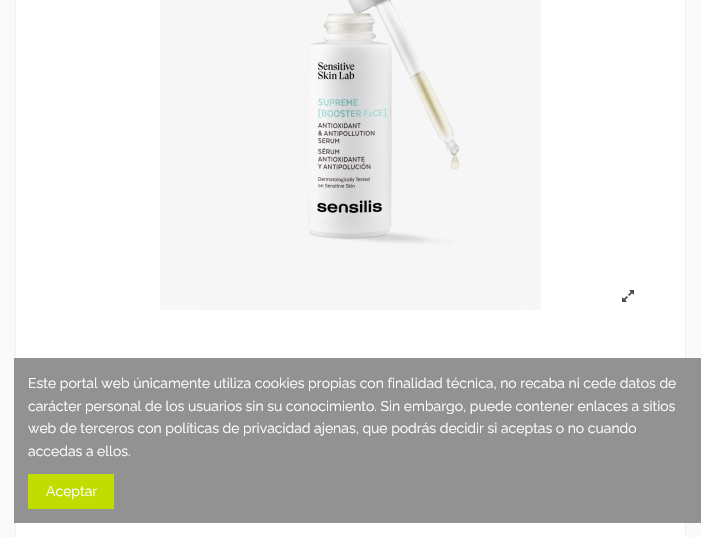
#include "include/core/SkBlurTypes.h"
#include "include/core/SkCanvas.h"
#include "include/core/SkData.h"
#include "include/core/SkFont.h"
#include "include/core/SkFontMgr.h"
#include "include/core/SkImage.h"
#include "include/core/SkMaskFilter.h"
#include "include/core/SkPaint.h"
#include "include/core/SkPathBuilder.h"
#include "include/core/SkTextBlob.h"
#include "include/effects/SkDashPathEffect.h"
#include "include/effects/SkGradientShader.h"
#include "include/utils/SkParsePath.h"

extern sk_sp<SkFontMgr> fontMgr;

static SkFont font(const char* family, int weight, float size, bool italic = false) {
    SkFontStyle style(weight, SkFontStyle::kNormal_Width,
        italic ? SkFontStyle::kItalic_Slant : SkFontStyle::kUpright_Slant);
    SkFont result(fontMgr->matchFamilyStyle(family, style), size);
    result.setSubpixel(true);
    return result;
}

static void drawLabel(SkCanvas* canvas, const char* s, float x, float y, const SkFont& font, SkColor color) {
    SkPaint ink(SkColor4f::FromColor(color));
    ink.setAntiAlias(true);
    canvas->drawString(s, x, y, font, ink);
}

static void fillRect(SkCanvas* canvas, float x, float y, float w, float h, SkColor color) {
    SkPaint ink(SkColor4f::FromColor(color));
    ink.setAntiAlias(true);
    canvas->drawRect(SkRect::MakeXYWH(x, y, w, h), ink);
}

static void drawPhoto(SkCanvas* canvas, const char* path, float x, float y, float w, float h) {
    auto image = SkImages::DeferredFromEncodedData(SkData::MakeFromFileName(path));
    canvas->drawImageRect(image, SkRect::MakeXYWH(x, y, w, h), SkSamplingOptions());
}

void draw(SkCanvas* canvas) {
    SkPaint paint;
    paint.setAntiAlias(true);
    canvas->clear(0xFFFAFAFA);
    paint.setColor(0xFFFFFFFF);
    canvas->drawRect(SkRect::MakeXYWH(15.5f, -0.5f, 670, 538), paint);
    paint.setStroke(true);
    paint.setStrokeWidth(1);
    paint.setColor(0xFFF0F0F0);
    canvas->drawRect(SkRect::MakeXYWH(15.5f, -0.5f, 670, 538), paint);
    drawPhoto(canvas, "assets/img1.png", 160, 0, 381, 310);
    drawPhoto(canvas, "assets/img2.png", 622, 290, 12, 12);
    fillRect(canvas, 14, 358, 687, 165, 0xFF929292);
    SkFont font1 = font("Raleway", 400, 14);
    drawLabel(canvas, "Este portal web únicamente utiliza cookies propias con finalidad técnica, no recaba ni cede datos de", 28, 388, font1, 0xFFFFFFFF);
    drawLabel(canvas, "carácter personal de los usuarios sin su conocimiento. Sin embargo, puede contener enlaces a sitios", 28, 411, font1, 0xFFFFFFFF);
    drawLabel(canvas, "web de terceros con políticas de privacidad ajenas, que podrás decidir si aceptas o no cuando", 28, 433, font1, 0xFFFFFFFF);
    drawLabel(canvas, "accedas a ellos.", 28, 456, font1, 0xFFFFFFFF);
    fillRect(canvas, 28, 474, 86, 35, 0xFFC1DC01);
    drawLabel(canvas, "Aceptar", 46, 496, font1, 0xFFFFFFFF);
}
